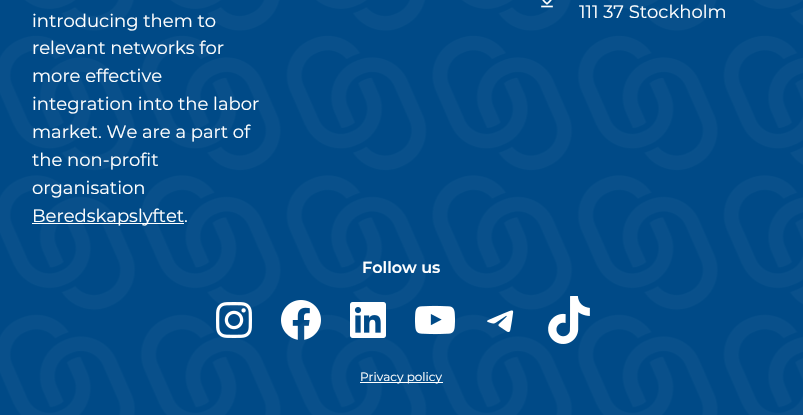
#include "include/core/SkBlurTypes.h"
#include "include/core/SkCanvas.h"
#include "include/core/SkData.h"
#include "include/core/SkFont.h"
#include "include/core/SkFontMgr.h"
#include "include/core/SkImage.h"
#include "include/core/SkMaskFilter.h"
#include "include/core/SkPaint.h"
#include "include/core/SkPathBuilder.h"
#include "include/core/SkTextBlob.h"
#include "include/effects/SkDashPathEffect.h"
#include "include/effects/SkGradientShader.h"
#include "include/utils/SkParsePath.h"

extern sk_sp<SkFontMgr> fontMgr;

static SkFont font(const char* family, int weight, float size, bool italic = false) {
    SkFontStyle style(weight, SkFontStyle::kNormal_Width,
        italic ? SkFontStyle::kItalic_Slant : SkFontStyle::kUpright_Slant);
    SkFont result(fontMgr->matchFamilyStyle(family, style), size);
    result.setSubpixel(true);
    return result;
}

static void drawLabel(SkCanvas* canvas, const char* s, float x, float y, const SkFont& font, SkColor color) {
    SkPaint ink(SkColor4f::FromColor(color));
    ink.setAntiAlias(true);
    canvas->drawString(s, x, y, font, ink);
}

static void fillRect(SkCanvas* canvas, float x, float y, float w, float h, SkColor color) {
    SkPaint ink(SkColor4f::FromColor(color));
    ink.setAntiAlias(true);
    canvas->drawRect(SkRect::MakeXYWH(x, y, w, h), ink);
}

static void drawPhoto(SkCanvas* canvas, const char* path, float x, float y, float w, float h) {
    auto image = SkImages::DeferredFromEncodedData(SkData::MakeFromFileName(path));
    canvas->drawImageRect(image, SkRect::MakeXYWH(x, y, w, h), SkSamplingOptions());
}

void draw(SkCanvas* canvas) {
    SkPaint paint;
    paint.setAntiAlias(true);
    canvas->clear(0xFF004A87);
    drawPhoto(canvas, "assets/img1.png", 0, 0, 803, 415);
    drawPhoto(canvas, "assets/img2.png", 541, 0, 12, 8);
    SkFont font1 = font("Montserrat", 400, 18);
    drawLabel(canvas, "111 37 Stockholm", 579, 18, font1, 0xFFFFFFFF);
    drawLabel(canvas, "introducing them to", 32, 27, font1, 0xFFFFFFFF);
    drawLabel(canvas, "relevant networks for", 32, 54, font1, 0xFFFFFFFF);
    drawLabel(canvas, "more effective", 32, 82, font1, 0xFFFFFFFF);
    drawLabel(canvas, "integration into the labor", 32, 110, font1, 0xFFFFFFFF);
    drawLabel(canvas, "market. We are a part of", 32, 138, font1, 0xFFFFFFFF);
    drawLabel(canvas, "the non-profit", 32, 166, font1, 0xFFFFFFFF);
    drawLabel(canvas, "organisation", 32, 194, font1, 0xFFFFFFFF);
    fillRect(canvas, 32, 223, 152, 1, 0xFFFFFFFF);
    drawLabel(canvas, "Beredskapslyftet.", 32, 222, font1, 0xFFFFFFFF);
    SkFont font2 = font("Montserrat", 600, 16);
    drawLabel(canvas, "Follow us", 362, 273, font2, 0xFFFFFFFF);
    drawPhoto(canvas, "assets/img3.png", 216, 302, 36, 36);
    drawPhoto(canvas, "assets/img4.png", 281, 300, 40, 40);
    drawPhoto(canvas, "assets/img5.png", 350, 302, 36, 36);
    drawPhoto(canvas, "assets/img6.png", 415, 305, 40, 30);
    drawPhoto(canvas, "assets/img7.png", 487, 310, 27, 22);
    drawPhoto(canvas, "assets/img8.png", 548, 296, 42, 48);
    fillRect(canvas, 360, 382, 83, 1, 0xFFFFFFFF);
    SkFont font3 = font("Montserrat", 400, 12);
    drawLabel(canvas, "Privacy policy", 360, 381, font3, 0xFFFFFFFF);
}
